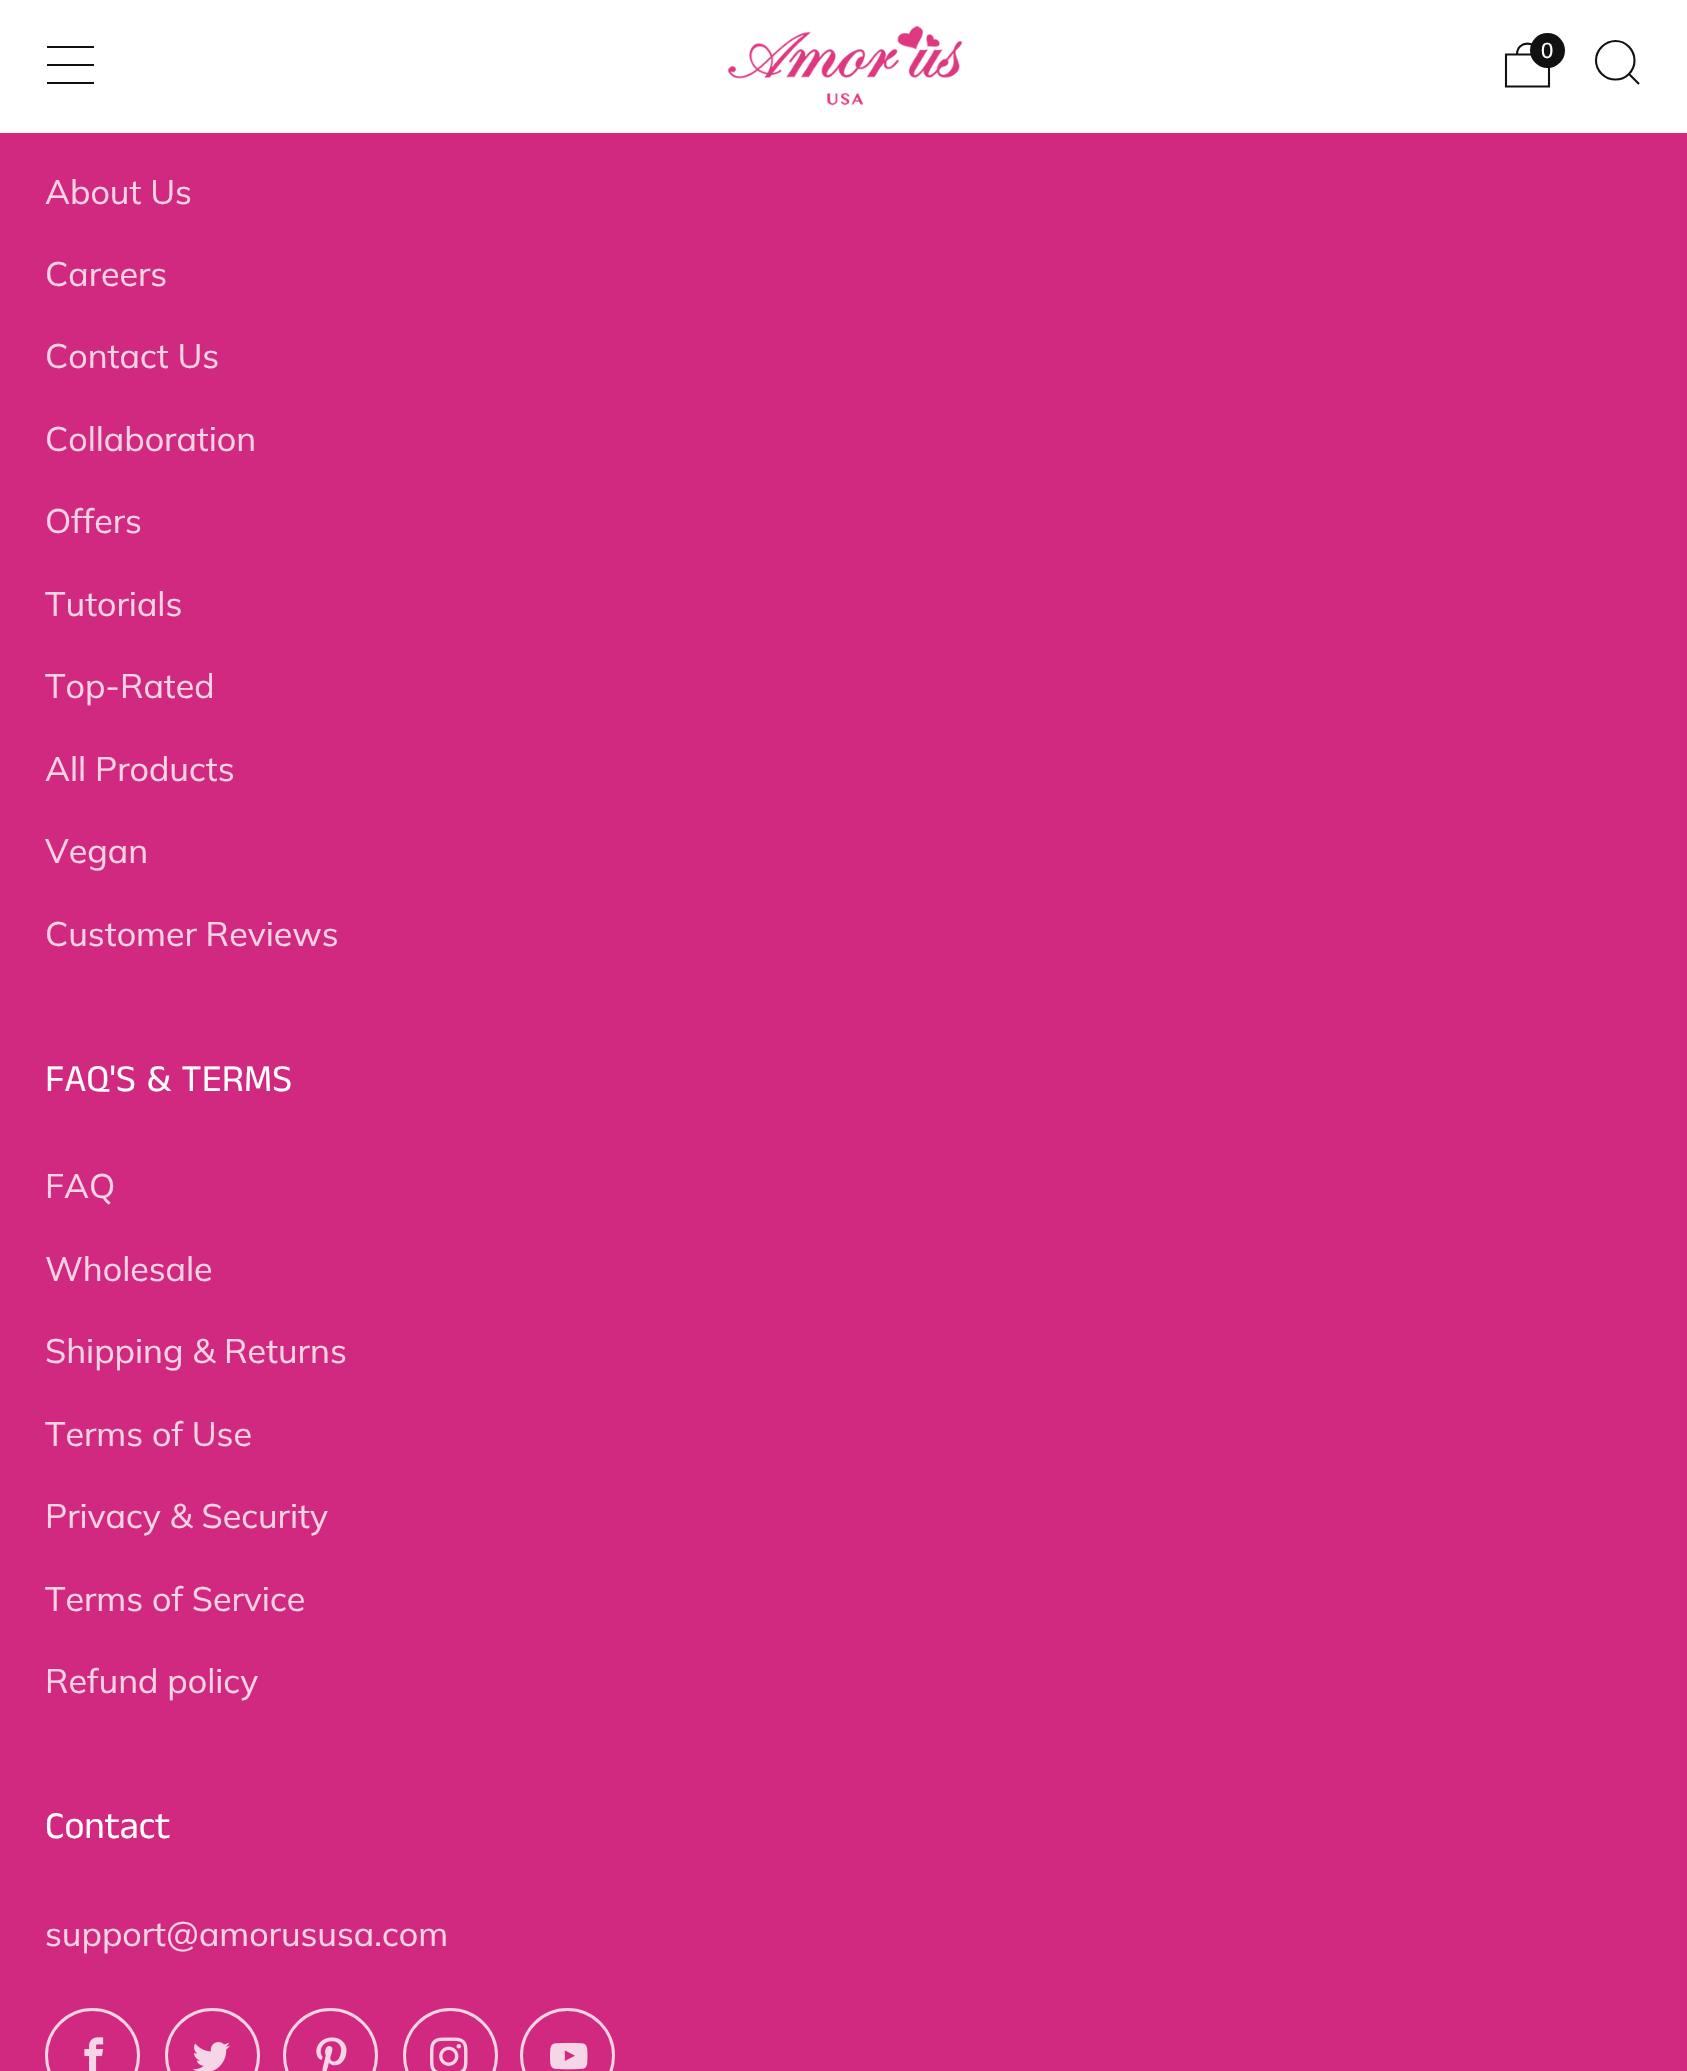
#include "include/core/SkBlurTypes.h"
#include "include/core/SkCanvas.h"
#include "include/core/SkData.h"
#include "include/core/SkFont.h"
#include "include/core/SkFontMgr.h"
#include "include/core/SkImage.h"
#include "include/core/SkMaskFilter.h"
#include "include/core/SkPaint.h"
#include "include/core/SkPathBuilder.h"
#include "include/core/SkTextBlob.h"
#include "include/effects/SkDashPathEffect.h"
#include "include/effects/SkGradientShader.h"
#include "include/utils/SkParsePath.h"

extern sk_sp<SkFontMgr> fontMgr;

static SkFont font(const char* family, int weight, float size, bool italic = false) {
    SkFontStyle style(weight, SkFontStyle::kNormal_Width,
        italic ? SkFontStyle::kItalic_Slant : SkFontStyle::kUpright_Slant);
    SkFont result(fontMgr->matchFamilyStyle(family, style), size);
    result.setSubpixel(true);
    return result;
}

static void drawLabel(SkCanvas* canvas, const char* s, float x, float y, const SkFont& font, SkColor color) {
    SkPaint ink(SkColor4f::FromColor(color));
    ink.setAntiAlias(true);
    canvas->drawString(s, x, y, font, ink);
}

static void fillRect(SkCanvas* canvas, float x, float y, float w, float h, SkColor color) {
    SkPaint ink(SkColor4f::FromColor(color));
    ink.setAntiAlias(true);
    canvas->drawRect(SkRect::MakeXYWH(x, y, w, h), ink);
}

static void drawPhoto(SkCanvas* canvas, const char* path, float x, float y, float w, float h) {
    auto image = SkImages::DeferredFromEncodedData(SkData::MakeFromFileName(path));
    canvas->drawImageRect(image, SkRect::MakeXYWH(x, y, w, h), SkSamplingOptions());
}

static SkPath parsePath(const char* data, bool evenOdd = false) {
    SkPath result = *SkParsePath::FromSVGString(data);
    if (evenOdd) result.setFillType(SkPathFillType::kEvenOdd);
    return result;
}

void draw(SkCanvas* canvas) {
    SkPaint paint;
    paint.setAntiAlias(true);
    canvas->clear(0xFFD1297F);
    fillRect(canvas, 0, 0, 1687, 133, 0xFFFFFFFF);
    fillRect(canvas, 47, 46, 47, 2, 0xFF111111);
    fillRect(canvas, 47, 64, 47, 2, 0xFF111111);
    fillRect(canvas, 47, 82, 47, 2, 0xFF111111);
    drawPhoto(canvas, "assets/img1.png", 727, 25, 236, 81);
    paint.setStroke(true);
    paint.setStrokeWidth(2.1f);
    paint.setColor(0xFF111111);
    canvas->drawPath(parsePath("M1506 54.5H1549V86.5H1506ZM1538 54.5C1538 40 1517 40 1517 54.5"), paint);
    paint.setStroke(false);
    canvas->drawCircle(1547.5f, 50.5f, 17.5f, paint);
    SkFont font1 = font("Liberation Sans", 400, 22);
    drawLabel(canvas, "0", 1541, 58, font1, 0xFFFFFFFF);
    paint.setStroke(true);
    canvas->drawPath(parsePath("M1615.5 79.5C1626 79.5 1634.5 71 1634.5 60.5C1634.5 50 1626 41 1615.5 41C1605 41 1596 50 1596 60.5C1596 71 1605 79.5 1615.5 79.5ZM1629 74L1639 84"), paint);
    SkFont font2 = font("Muli", 400, 34);
    drawLabel(canvas, "About Us", 45, 204, font2, 0xFFF6D4E5);
    drawLabel(canvas, "Careers", 45, 286, font2, 0xFFF6D4E5);
    drawLabel(canvas, "Contact Us", 45, 368, font2, 0xFFF6D4E5);
    drawLabel(canvas, "Collaboration", 45, 451, font2, 0xFFF6D4E5);
    drawLabel(canvas, "Offers", 45, 533, font2, 0xFFF6D4E5);
    drawLabel(canvas, "Tutorials", 45, 616, font2, 0xFFF6D4E5);
    drawLabel(canvas, "Top-Rated", 45, 698, font2, 0xFFF6D4E5);
    drawLabel(canvas, "All Products", 45, 781, font2, 0xFFF6D4E5);
    drawLabel(canvas, "Vegan", 45, 863, font2, 0xFFF6D4E5);
    drawLabel(canvas, "Customer Reviews", 45, 946, font2, 0xFFF6D4E5);
    SkFont font3 = font("Anek Tamil", 400, 38.25f);
    drawLabel(canvas, "FAQ'S & TERMS", 45, 1091, font3, 0xFFFFFFFF);
    drawLabel(canvas, "FAQ", 45, 1198, font2, 0xFFF6D4E5);
    drawLabel(canvas, "Wholesale", 45, 1281, font2, 0xFFF6D4E5);
    drawLabel(canvas, "Shipping & Returns", 45, 1363, font2, 0xFFF6D4E5);
    drawLabel(canvas, "Terms of Use", 45, 1446, font2, 0xFFF6D4E5);
    drawLabel(canvas, "Privacy & Security", 45, 1528, font2, 0xFFF6D4E5);
    drawLabel(canvas, "Terms of Service", 45, 1611, font2, 0xFFF6D4E5);
    drawLabel(canvas, "Refund policy", 45, 1693, font2, 0xFFF6D4E5);
    drawLabel(canvas, "Contact", 45, 1838, font3, 0xFFFFFFFF);
    drawLabel(canvas, "support@amorususa.com", 45, 1946, font2, 0xFFF6D4E5);
    paint.setStrokeWidth(3);
    paint.setColor(0xFFF6D4E5);
    canvas->drawCircle(92.5f, 2055.5f, 46, paint);
    drawPhoto(canvas, "assets/img2.png", 84, 2037, 20, 34);
    canvas->drawCircle(212.5f, 2055.5f, 46, paint);
    drawPhoto(canvas, "assets/img3.png", 192, 2042, 38, 29);
    canvas->drawCircle(330.5f, 2055.5f, 46, paint);
    drawPhoto(canvas, "assets/img4.png", 316, 2037, 31, 34);
    canvas->drawCircle(450.5f, 2055.5f, 46, paint);
    drawPhoto(canvas, "assets/img5.png", 430, 2037, 38, 34);
    canvas->drawCircle(567.5f, 2055.5f, 46, paint);
    drawPhoto(canvas, "assets/img6.png", 550, 2042, 38, 28);
}
